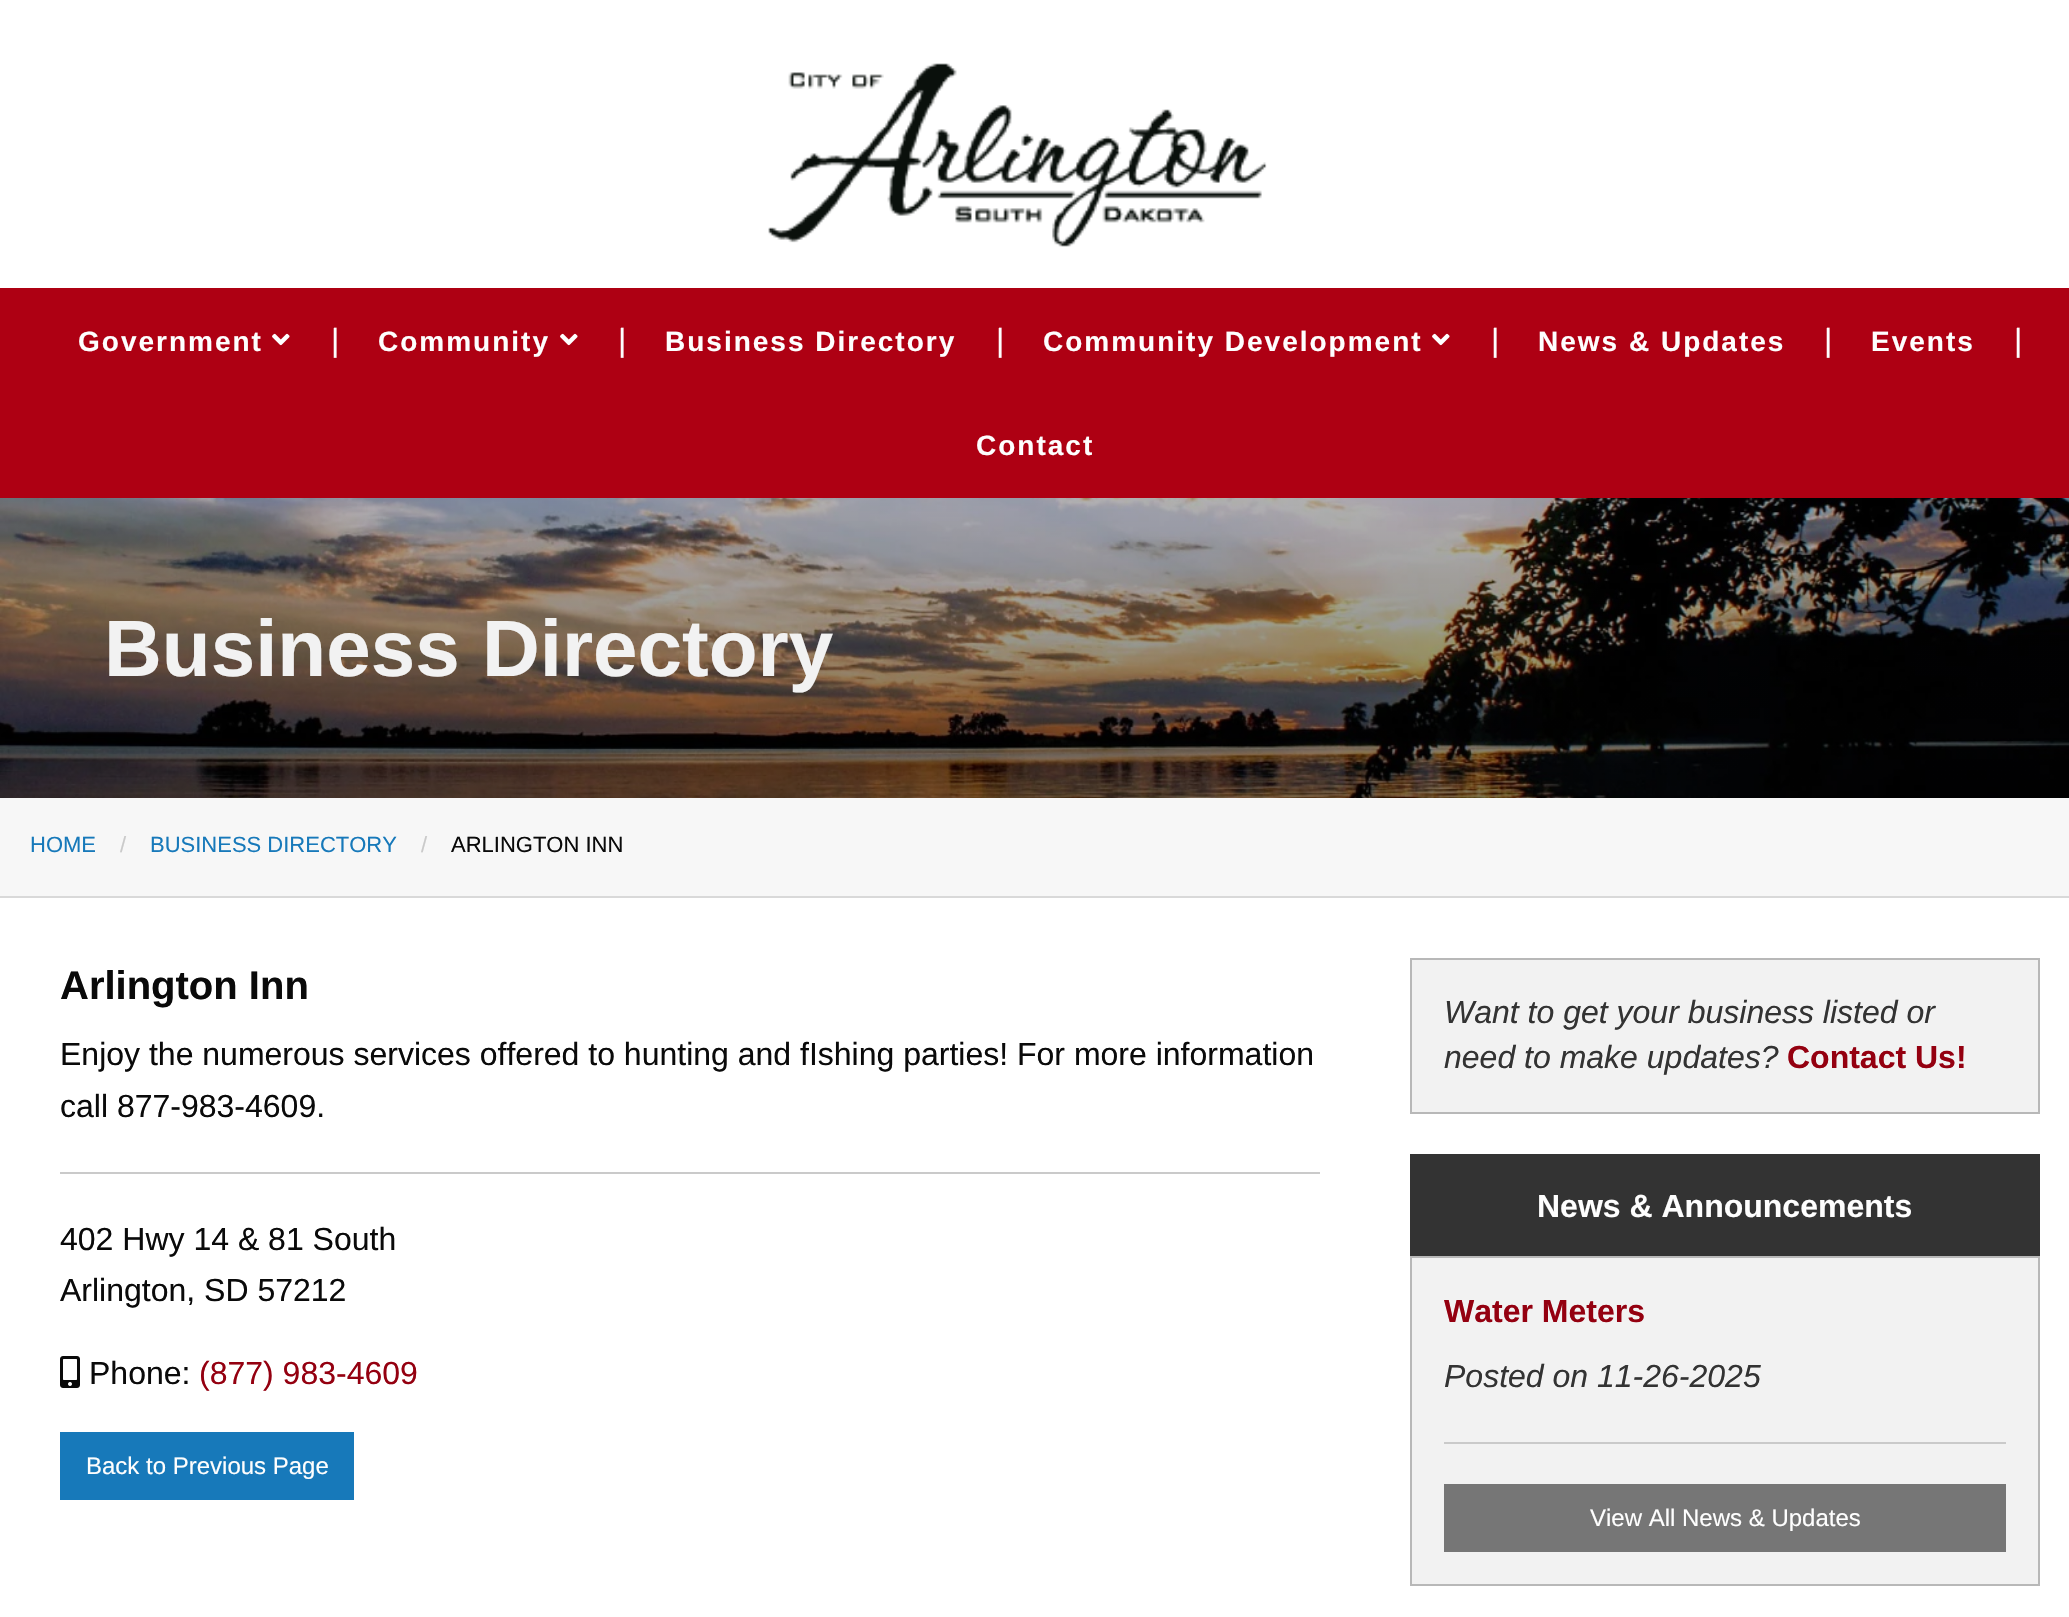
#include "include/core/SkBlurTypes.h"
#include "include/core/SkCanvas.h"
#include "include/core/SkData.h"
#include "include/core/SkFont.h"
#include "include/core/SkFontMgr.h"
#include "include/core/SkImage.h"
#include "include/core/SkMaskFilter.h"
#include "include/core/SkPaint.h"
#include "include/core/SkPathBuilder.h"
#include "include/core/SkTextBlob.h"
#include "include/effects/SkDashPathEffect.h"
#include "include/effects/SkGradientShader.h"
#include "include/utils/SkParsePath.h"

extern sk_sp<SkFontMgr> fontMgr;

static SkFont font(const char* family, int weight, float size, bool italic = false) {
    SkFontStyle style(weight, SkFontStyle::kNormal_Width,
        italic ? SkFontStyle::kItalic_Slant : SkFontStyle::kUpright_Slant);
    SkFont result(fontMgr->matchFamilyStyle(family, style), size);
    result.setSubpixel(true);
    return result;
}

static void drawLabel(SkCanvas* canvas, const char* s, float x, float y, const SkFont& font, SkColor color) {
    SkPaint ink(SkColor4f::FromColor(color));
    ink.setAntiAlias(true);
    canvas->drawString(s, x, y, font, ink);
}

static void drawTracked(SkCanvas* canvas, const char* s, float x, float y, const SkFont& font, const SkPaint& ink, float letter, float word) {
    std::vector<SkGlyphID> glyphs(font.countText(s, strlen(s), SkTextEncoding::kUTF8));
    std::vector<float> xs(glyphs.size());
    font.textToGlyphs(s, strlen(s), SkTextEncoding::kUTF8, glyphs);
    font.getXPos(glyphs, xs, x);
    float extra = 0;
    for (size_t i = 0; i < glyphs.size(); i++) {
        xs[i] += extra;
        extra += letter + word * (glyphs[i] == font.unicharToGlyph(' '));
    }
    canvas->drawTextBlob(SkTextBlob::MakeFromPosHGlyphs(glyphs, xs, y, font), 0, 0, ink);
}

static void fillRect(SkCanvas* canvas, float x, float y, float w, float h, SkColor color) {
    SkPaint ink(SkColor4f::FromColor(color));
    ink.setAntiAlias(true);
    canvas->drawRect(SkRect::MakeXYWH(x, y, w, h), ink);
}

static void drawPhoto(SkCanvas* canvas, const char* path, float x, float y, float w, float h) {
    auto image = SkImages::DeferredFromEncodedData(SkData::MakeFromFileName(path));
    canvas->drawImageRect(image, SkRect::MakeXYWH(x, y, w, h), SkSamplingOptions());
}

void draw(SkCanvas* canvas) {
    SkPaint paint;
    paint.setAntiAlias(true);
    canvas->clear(0xFFFFFFFF);
    drawPhoto(canvas, "assets/img1.png", 768, 63, 499, 184);
    fillRect(canvas, 0, 288, 2069, 210, 0xFFAE0013);
    SkFont font1 = font("Liberation Sans", 700, 28);
    paint.setColor(0xFFFEFEFE);
    drawTracked(canvas, "Government", 78, 351, font1, paint, 2, 0);
    drawPhoto(canvas, "assets/img2.png", 272, 333, 18, 13);
    SkFont font2 = font("Liberation Sans", 400, 32);
    drawLabel(canvas, "|", 331, 351, font2, 0xFFFEFEFE);
    drawTracked(canvas, "Community", 378, 351, font1, paint, 2, 0);
    drawPhoto(canvas, "assets/img2.png", 560, 333, 18, 13);
    drawLabel(canvas, "|", 618, 351, font2, 0xFFFEFEFE);
    drawTracked(canvas, "Business Directory", 665, 351, font1, paint, 2, 0);
    drawLabel(canvas, "|", 996, 351, font2, 0xFFFEFEFE);
    drawTracked(canvas, "Community Development", 1043, 351, font1, paint, 2, 0);
    drawPhoto(canvas, "assets/img2.png", 1432, 333, 18, 13);
    drawLabel(canvas, "|", 1491, 351, font2, 0xFFFEFEFE);
    drawTracked(canvas, "News & Updates", 1538, 351, font1, paint, 2, 0);
    drawLabel(canvas, "|", 1824, 351, font2, 0xFFFEFEFE);
    drawTracked(canvas, "Events", 1871, 351, font1, paint, 2, 0);
    drawLabel(canvas, "|", 2014, 351, font2, 0xFFFEFEFE);
    drawTracked(canvas, "Contact", 976, 455, font1, paint, 2, 0);
    drawPhoto(canvas, "assets/img3.png", 0, 498, 2069, 300);
    SkFont font3 = font("Liberation Sans", 700, 80);
    drawLabel(canvas, "Business Directory", 104, 676, font3, 0xFFF2F2F2);
    fillRect(canvas, 0, 798, 2069, 98, 0xFFF7F7F7);
    fillRect(canvas, 0, 896, 2069, 2, 0xFFD9D9D9);
    SkFont font4 = font("Liberation Sans", 400, 22);
    drawLabel(canvas, "HOME", 30, 852, font4, 0xFF1779BA);
    drawLabel(canvas, "/", 120, 852, font4, 0xFFCACACA);
    drawLabel(canvas, "BUSINESS DIRECTORY", 150, 852, font4, 0xFF1779BA);
    drawLabel(canvas, "/", 421, 852, font4, 0xFFCACACA);
    drawLabel(canvas, "ARLINGTON INN", 451, 852, font4, 0xFF0A0A0A);
    SkFont font5 = font("Liberation Sans", 700, 40);
    drawLabel(canvas, "Arlington Inn", 60, 999, font5, 0xFF0A0A0A);
    drawLabel(canvas, "Enjoy the numerous services offered to hunting and fIshing parties! For more information", 60, 1065, font2, 0xFF0A0A0A);
    drawLabel(canvas, "call 877-983-4609.", 60, 1117, font2, 0xFF0A0A0A);
    fillRect(canvas, 60, 1172, 1260, 2, 0xFFCACACA);
    drawLabel(canvas, "402 Hwy 14 & 81 South", 60, 1250, font2, 0xFF0A0A0A);
    drawLabel(canvas, "Arlington, SD 57212", 60, 1301, font2, 0xFF0A0A0A);
    drawPhoto(canvas, "assets/img4.png", 60, 1356, 20, 32);
    drawLabel(canvas, "Phone:", 89, 1384, font2, 0xFF0A0A0A);
    drawLabel(canvas, "(877) 983-4609", 199, 1384, font2, 0xFF940010);
    fillRect(canvas, 60, 1432, 294, 68, 0xFF1779BA);
    SkFont font6 = font("Liberation Sans", 400, 24);
    drawLabel(canvas, "Back to Previous Page", 86, 1474, font6, 0xFFFEFEFE);
    paint.setColor(0xFFF2F2F2);
    canvas->drawRect(SkRect::MakeXYWH(1411, 959, 628, 154), paint);
    paint.setStroke(true);
    paint.setStrokeWidth(2);
    paint.setColor(0xFFB8B8B8);
    canvas->drawRect(SkRect::MakeXYWH(1411, 959, 628, 154), paint);
    SkFont font7 = font("Liberation Sans", 400, 32, true);
    drawLabel(canvas, "Want to get your business listed or", 1444, 1023, font7, 0xFF333333);
    drawLabel(canvas, "need to make updates?", 1444, 1068, font7, 0xFF333333);
    SkFont font8 = font("Liberation Sans", 700, 32);
    drawLabel(canvas, "Contact Us!", 1787, 1068, font8, 0xFF940010);
    fillRect(canvas, 1410, 1154, 630, 102, 0xFF333333);
    drawLabel(canvas, "News & Announcements", 1537, 1217, font8, 0xFFFEFEFE);
    paint.setStroke(false);
    paint.setColor(0xFFF2F2F2);
    canvas->drawRect(SkRect::MakeXYWH(1411, 1257, 628, 328), paint);
    paint.setStroke(true);
    paint.setColor(0xFFB8B8B8);
    canvas->drawRect(SkRect::MakeXYWH(1411, 1257, 628, 328), paint);
    drawLabel(canvas, "Water Meters", 1444, 1322, font8, 0xFF940010);
    drawLabel(canvas, "Posted on 11-26-2025", 1444, 1387, font7, 0xFF333333);
    fillRect(canvas, 1444, 1442, 562, 2, 0xFFCACACA);
    fillRect(canvas, 1444, 1484, 562, 68, 0xFF767676);
    drawLabel(canvas, "View All News & Updates", 1590, 1526, font6, 0xFFFEFEFE);
}
